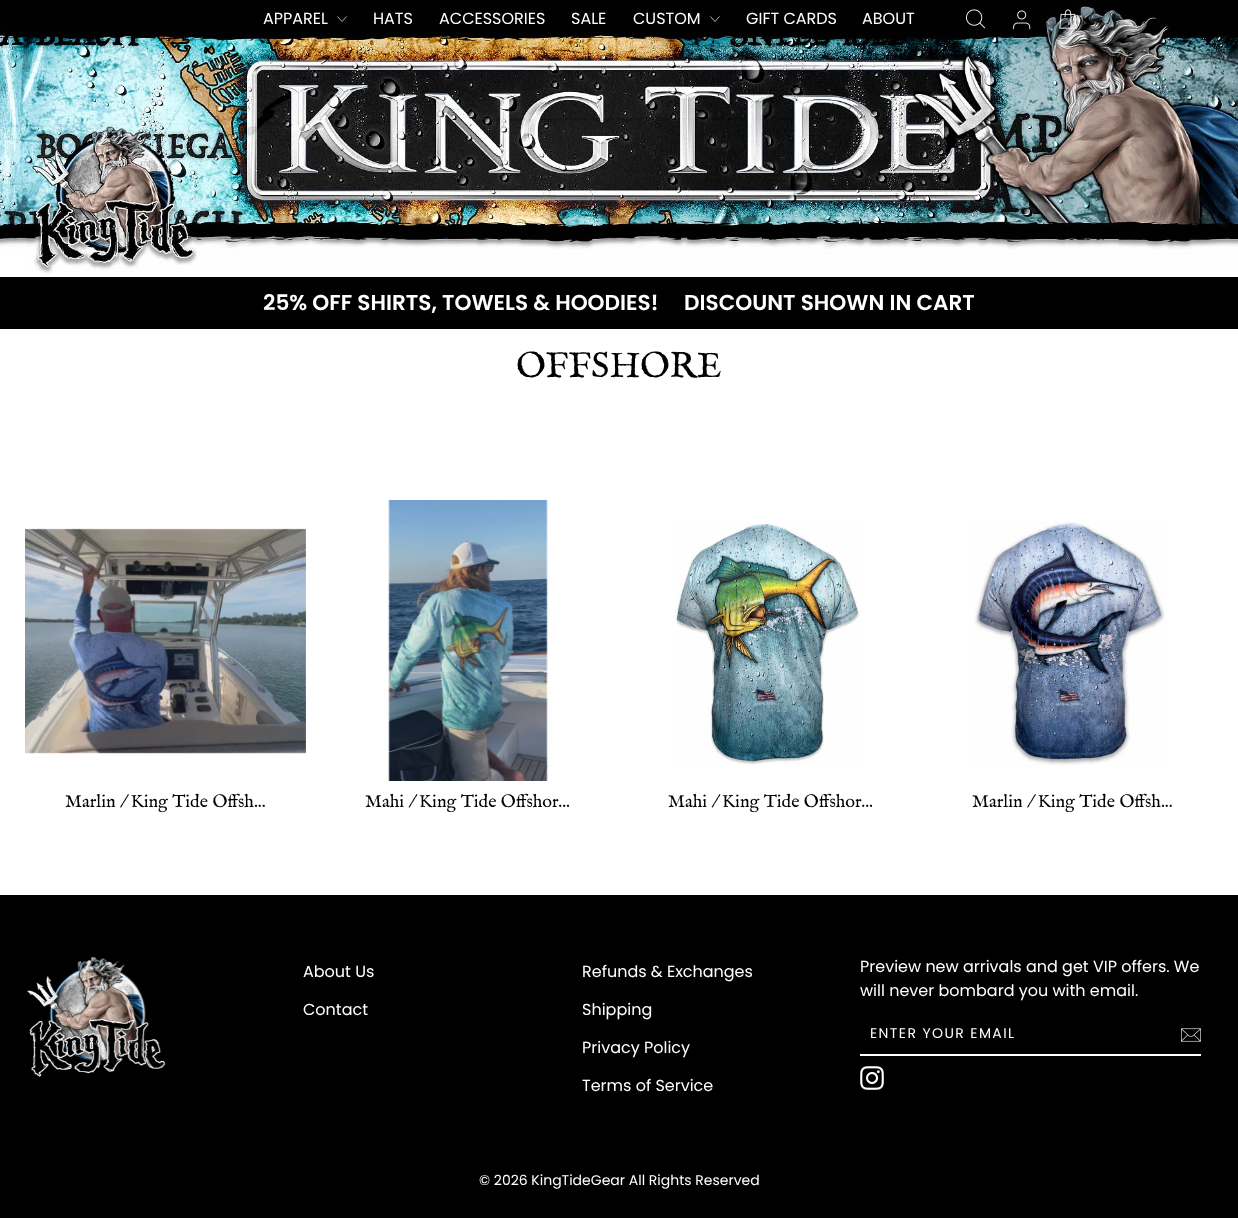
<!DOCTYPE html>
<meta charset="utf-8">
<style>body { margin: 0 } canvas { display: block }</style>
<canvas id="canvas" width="1238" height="1218"></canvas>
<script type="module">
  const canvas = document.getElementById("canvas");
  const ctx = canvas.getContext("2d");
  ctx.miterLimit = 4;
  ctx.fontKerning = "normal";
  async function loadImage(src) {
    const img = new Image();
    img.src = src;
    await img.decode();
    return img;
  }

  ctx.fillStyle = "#ffffff";
  ctx.fillRect(0, 0, 1238, 1218);
  ctx.drawImage(await loadImage("img1.png"), 0, 0, 1238, 274);
  ctx.font = "16px Poppins";
  ctx.fillText("APPAREL", 263, 24);
  ctx.beginPath();
  ctx.moveTo(337.5, 16.5);
  ctx.lineTo(342, 21.5);
  ctx.lineTo(346.5, 16.5);
  ctx.strokeStyle = "#ffffff";
  ctx.lineWidth = 0.7;
  ctx.stroke();
  ctx.fillText("HATS", 373, 24);
  ctx.fillText("ACCESSORIES", 439, 24);
  ctx.fillText("SALE", 571, 24);
  ctx.fillText("CUSTOM", 633, 24);
  ctx.beginPath();
  ctx.moveTo(710.5, 16.5);
  ctx.lineTo(715, 21.5);
  ctx.lineTo(719.5, 16.5);
  ctx.stroke();
  ctx.fillText("GIFT CARDS", 746, 24);
  ctx.fillText("ABOUT", 862, 24);
  ctx.drawImage(await loadImage("img2.png"), 966, 9, 20, 20);
  ctx.drawImage(await loadImage("img3.png"), 1013, 10, 18, 20);
  ctx.drawImage(await loadImage("img4.png"), 1059, 9, 18, 20);
  ctx.fillStyle = "#000000";
  ctx.fillRect(0, 277, 1238, 52);
  ctx.font = "600 21.6px Poppins";
  ctx.fillStyle = "#ffffff";
  ctx.fillText("25% OFF SHIRTS, TOWELS & HOODIES!", 263, 310);
  ctx.fillText("DISCOUNT SHOWN IN CART", 684, 310);
  ctx.font = "36px IM FELL English";
  ctx.fillStyle = "#000000";
  ctx.fillText("OFFSHORE", 516, 377);
  ctx.drawImage(await loadImage("img5.png"), 25, 528, 281, 226);
  ctx.wordSpacing = "0.5px";
  ctx.font = "18px IM FELL English";
  ctx.fillText("Marlin / King Tide Offsh...", 65, 807);
  ctx.drawImage(await loadImage("img6.png"), 388, 500, 160, 281);
  ctx.fillText("Mahi / King Tide Offshor...", 365, 807);
  ctx.drawImage(await loadImage("img7.png"), 675, 523, 184, 242);
  ctx.fillText("Mahi / King Tide Offshor...", 668, 807);
  ctx.drawImage(await loadImage("img8.png"), 974, 521, 191, 245);
  ctx.fillText("Marlin / King Tide Offsh...", 972, 807);
  ctx.fillRect(0, 895, 1238, 323);
  ctx.drawImage(await loadImage("img9.png"), 27, 957, 139, 120);
  ctx.wordSpacing = "0px";
  ctx.font = "16px Poppins";
  ctx.fillStyle = "#ffffff";
  ctx.fillText("About Us", 303, 977);
  ctx.fillText("Contact", 303, 1015);
  ctx.fillText("Refunds & Exchanges", 582, 977);
  ctx.fillText("Shipping", 582, 1015);
  ctx.fillText("Privacy Policy", 582, 1053);
  ctx.fillText("Terms of Service", 582, 1091);
  ctx.fillText("Preview new arrivals and get VIP offers. We", 860, 972);
  ctx.fillText("will never bombard you with email.", 860, 996);
  ctx.fillRect(860, 1054, 341, 2);
  ctx.letterSpacing = "1.4px";
  ctx.font = "14px Poppins";
  ctx.fillText("ENTER YOUR EMAIL", 870, 1038);
  ctx.drawImage(await loadImage("img10.png"), 1181, 1028, 20, 14);
  ctx.drawImage(await loadImage("img11.png"), 860, 1066, 24, 24);
  ctx.letterSpacing = "0px";
  ctx.fillText("© 2026 KingTideGear All Rights Reserved", 479, 1185);
</script>
